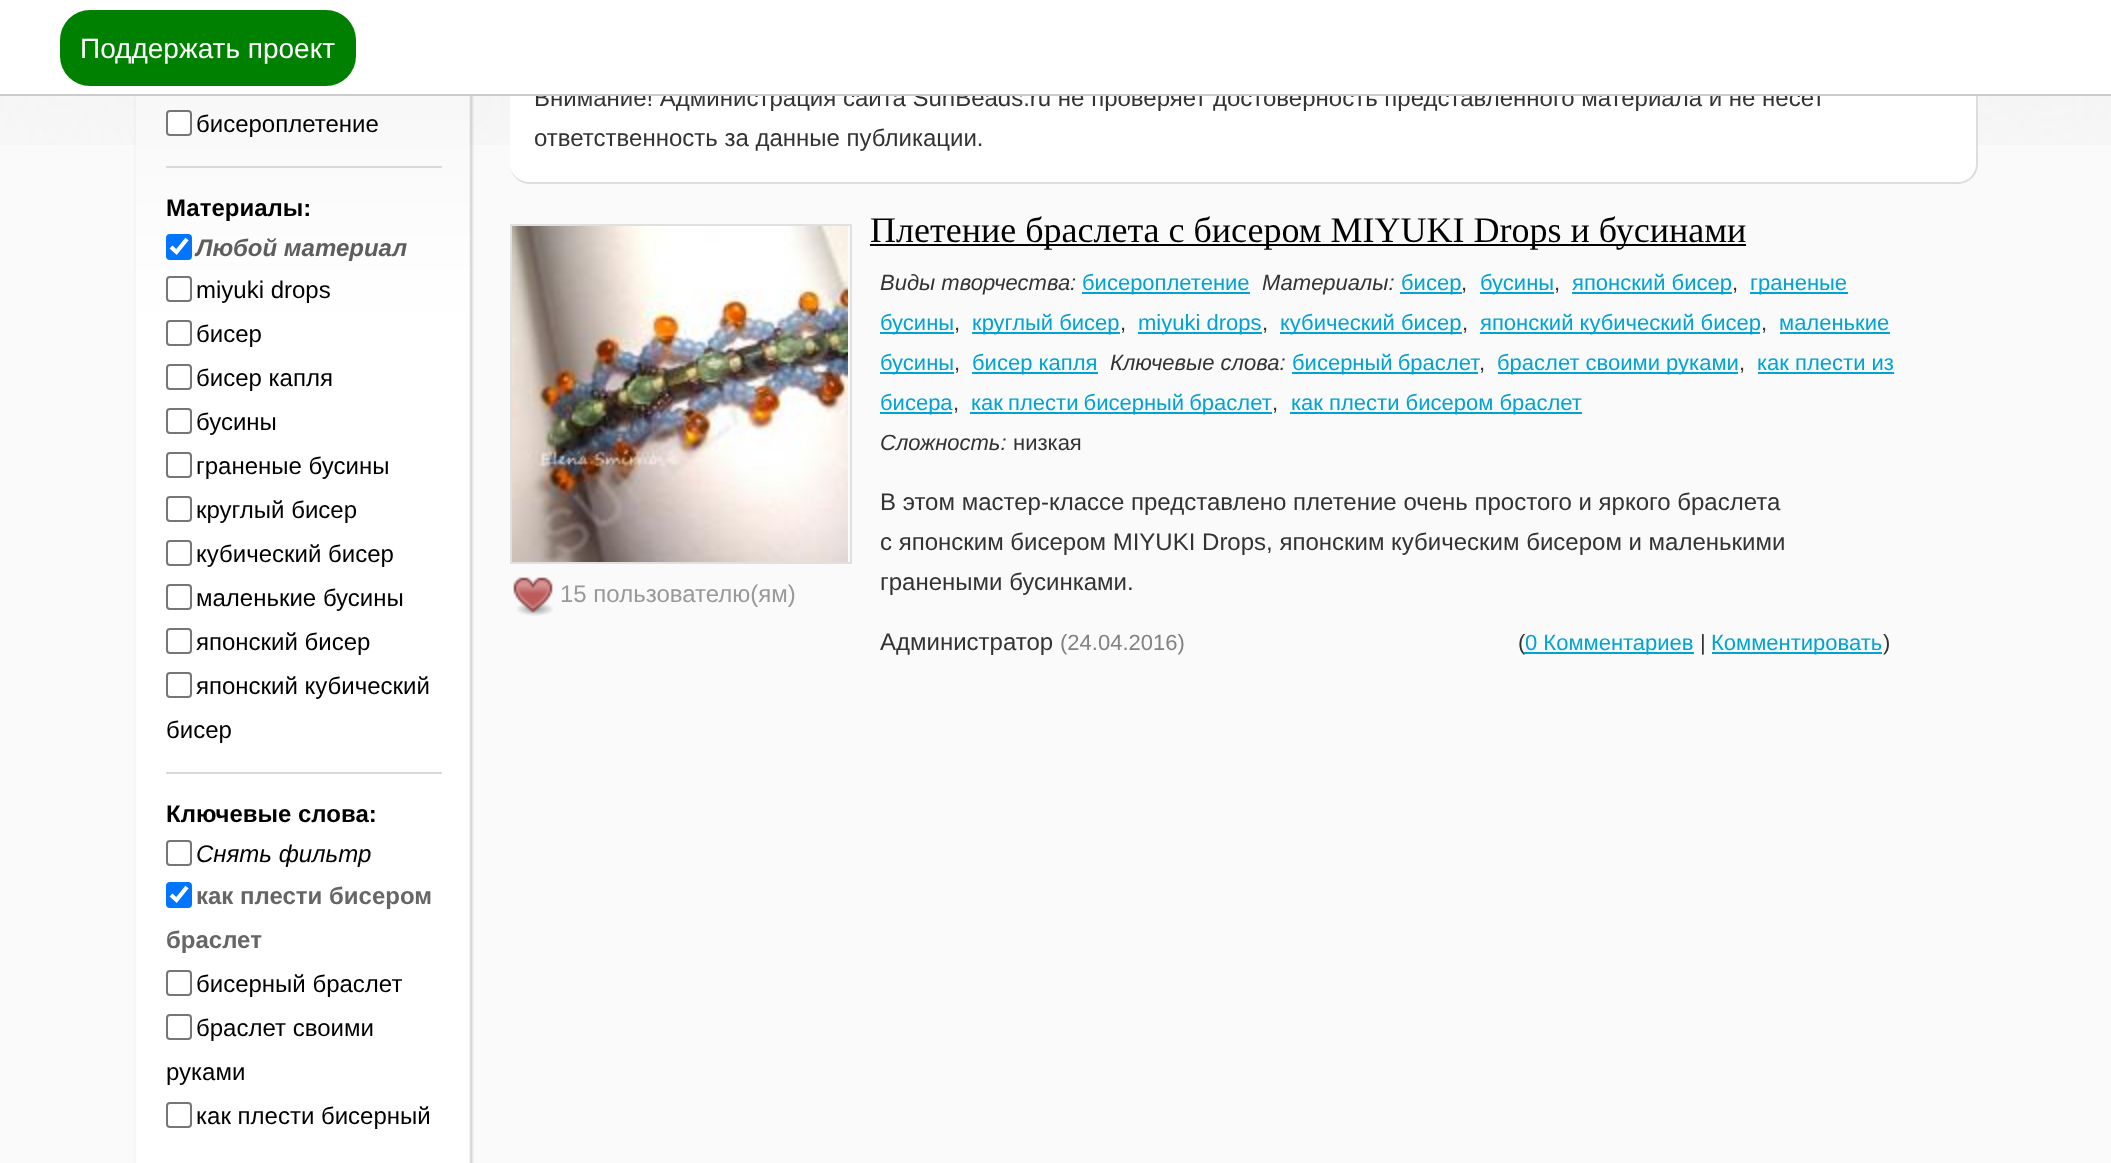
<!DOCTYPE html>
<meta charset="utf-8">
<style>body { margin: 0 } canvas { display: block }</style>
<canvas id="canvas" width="2111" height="1163"></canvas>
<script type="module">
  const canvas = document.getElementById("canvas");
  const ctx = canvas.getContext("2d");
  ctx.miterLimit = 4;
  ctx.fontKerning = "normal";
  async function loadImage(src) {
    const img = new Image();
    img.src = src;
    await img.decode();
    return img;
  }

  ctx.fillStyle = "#fafafa";
  ctx.fillRect(0, 0, 2111, 1163);
  ctx.drawImage(await loadImage("img1.png"), 0, 96, 2111, 49);
  ctx.fillStyle = "#ffffff";
  ctx.beginPath();
  ctx.roundRect(510, 54, 1468, 130, 20);
  ctx.fill();
  ctx.fillStyle = "#dddddd";
  ctx.beginPath();
  ctx.moveTo(530, 54);
  ctx.lineTo(1958, 54);
  ctx.bezierCurveTo(1969, 54, 1978, 63, 1978, 74);
  ctx.lineTo(1978, 164);
  ctx.bezierCurveTo(1978, 175, 1969, 184, 1958, 184);
  ctx.lineTo(530, 184);
  ctx.bezierCurveTo(519, 184, 510, 175, 510, 164);
  ctx.lineTo(510, 74);
  ctx.bezierCurveTo(510, 63, 519, 54, 530, 54);
  ctx.closePath();
  ctx.moveTo(530, 54);
  ctx.lineTo(1958, 54);
  ctx.bezierCurveTo(1968, 54, 1976, 63, 1976, 74);
  ctx.lineTo(1976, 164);
  ctx.bezierCurveTo(1976, 174, 1968, 182, 1958, 182);
  ctx.lineTo(530, 182);
  ctx.bezierCurveTo(519, 182, 510, 174, 510, 164);
  ctx.lineTo(510, 74);
  ctx.bezierCurveTo(510, 63, 519, 54, 530, 54);
  ctx.closePath();
  ctx.fill("evenodd");
  ctx.font = "24px Liberation Sans";
  ctx.fillStyle = "#333333";
  ctx.fillText("Внимание! Администрация сайта SunBeads.ru не проверяет достоверность представленного материала и не несет", 534, 106);
  ctx.fillStyle = "#ffffff";
  ctx.fillRect(0, 0, 2111, 94);
  ctx.fillStyle = "#cccccc";
  ctx.fillRect(0, 94, 2111, 2);
  ctx.fillStyle = "#008000";
  ctx.beginPath();
  ctx.roundRect(60, 10, 296, 76, 30);
  ctx.fill();
  ctx.font = "28px Liberation Sans";
  ctx.fillStyle = "#ffffff";
  ctx.fillText("Поддержать проект", 80, 58);
  ctx.drawImage(await loadImage("img2.png"), 134, 96, 300, 1067);
  ctx.drawImage(await loadImage("img3.png"), 434, 96, 40, 1067);
  ctx.beginPath();
  ctx.roundRect(167, 111, 24, 24, 3);
  ctx.fill();
  ctx.strokeStyle = "#767676";
  ctx.lineWidth = 2;
  ctx.stroke();
  ctx.font = "24px Liberation Sans";
  ctx.fillStyle = "#000000";
  ctx.fillText("бисероплетение", 196, 132);
  ctx.fillStyle = "#d9d9d9";
  ctx.fillRect(166, 166, 276, 2);
  ctx.font = "bold 24px Liberation Sans";
  ctx.fillStyle = "#000000";
  ctx.fillText("Материалы:", 166, 216);
  ctx.fillStyle = "#0075ff";
  ctx.beginPath();
  ctx.roundRect(166, 234, 26, 26, 4);
  ctx.fill();
  ctx.beginPath();
  ctx.moveTo(171, 247);
  ctx.lineTo(176.5, 252);
  ctx.lineTo(187, 239);
  ctx.strokeStyle = "#ffffff";
  ctx.lineWidth = 4.2;
  ctx.stroke();
  ctx.font = "italic bold 24px Liberation Sans";
  ctx.fillStyle = "#5e5e5e";
  ctx.fillText("Любой материал", 196, 256);
  ctx.beginPath();
  ctx.roundRect(167, 277, 24, 24, 3);
  ctx.strokeStyle = "#767676";
  ctx.lineWidth = 2;
  ctx.stroke();
  ctx.font = "24px Liberation Sans";
  ctx.fillStyle = "#000000";
  ctx.fillText("miyuki drops", 196, 298);
  ctx.beginPath();
  ctx.roundRect(167, 321, 24, 24, 3);
  ctx.stroke();
  ctx.fillText("бисер", 196, 342);
  ctx.beginPath();
  ctx.roundRect(167, 365, 24, 24, 3);
  ctx.stroke();
  ctx.fillText("бисер капля", 196, 386);
  ctx.beginPath();
  ctx.roundRect(167, 409, 24, 24, 3);
  ctx.stroke();
  ctx.fillText("бусины", 196, 430);
  ctx.beginPath();
  ctx.roundRect(167, 453, 24, 24, 3);
  ctx.stroke();
  ctx.fillText("граненые бусины", 196, 474);
  ctx.beginPath();
  ctx.roundRect(167, 497, 24, 24, 3);
  ctx.stroke();
  ctx.fillText("круглый бисер", 196, 518);
  ctx.beginPath();
  ctx.roundRect(167, 541, 24, 24, 3);
  ctx.stroke();
  ctx.fillText("кубический бисер", 196, 562);
  ctx.beginPath();
  ctx.roundRect(167, 585, 24, 24, 3);
  ctx.stroke();
  ctx.fillText("маленькие бусины", 196, 606);
  ctx.beginPath();
  ctx.roundRect(167, 629, 24, 24, 3);
  ctx.stroke();
  ctx.fillText("японский бисер", 196, 650);
  ctx.beginPath();
  ctx.roundRect(167, 673, 24, 24, 3);
  ctx.stroke();
  ctx.fillText("японский кубический", 196, 694);
  ctx.fillText("бисер", 166, 738);
  ctx.fillStyle = "#d9d9d9";
  ctx.fillRect(166, 772, 276, 2);
  ctx.font = "bold 24px Liberation Sans";
  ctx.fillStyle = "#000000";
  ctx.fillText("Ключевые слова:", 166, 822);
  ctx.beginPath();
  ctx.roundRect(167, 841, 24, 24, 3);
  ctx.stroke();
  ctx.font = "italic 24px Liberation Sans";
  ctx.fillText("Снять фильтр", 196, 862);
  ctx.fillStyle = "#0075ff";
  ctx.beginPath();
  ctx.roundRect(166, 882, 26, 26, 4);
  ctx.fill();
  ctx.beginPath();
  ctx.moveTo(171, 895);
  ctx.lineTo(176.5, 900);
  ctx.lineTo(187, 887);
  ctx.strokeStyle = "#ffffff";
  ctx.lineWidth = 4.2;
  ctx.stroke();
  ctx.font = "bold 24px Liberation Sans";
  ctx.fillStyle = "#666666";
  ctx.fillText("как плести бисером", 196, 904);
  ctx.fillText("браслет", 166, 948);
  ctx.beginPath();
  ctx.roundRect(167, 971, 24, 24, 3);
  ctx.strokeStyle = "#767676";
  ctx.lineWidth = 2;
  ctx.stroke();
  ctx.font = "24px Liberation Sans";
  ctx.fillStyle = "#000000";
  ctx.fillText("бисерный браслет", 196, 992);
  ctx.beginPath();
  ctx.roundRect(167, 1015, 24, 24, 3);
  ctx.stroke();
  ctx.fillText("браслет своими", 196, 1036);
  ctx.fillText("руками", 166, 1080);
  ctx.beginPath();
  ctx.roundRect(167, 1103, 24, 24, 3);
  ctx.stroke();
  ctx.fillText("как плести бисерный", 196, 1124);
  ctx.fillStyle = "#333333";
  ctx.fillText("ответственность за данные публикации.", 534, 146);
  ctx.strokeStyle = "#e0e0e0";
  ctx.strokeRect(511, 225, 340, 338);
  ctx.drawImage(await loadImage("img4.png"), 512, 226, 336, 336);
  ctx.drawImage(await loadImage("img5.png"), 513, 577, 40, 39);
  ctx.fillStyle = "#999999";
  ctx.fillText("15 пользователю(ям)", 560, 602);
  ctx.fillStyle = "#000000";
  ctx.fillRect(870, 244, 876, 2);
  ctx.font = "36px Liberation Serif";
  ctx.fillText("Плетение браслета с бисером MIYUKI Drops и бусинами", 870, 242);
  ctx.font = "italic 22px Liberation Sans";
  ctx.fillStyle = "#333333";
  ctx.fillText("Виды творчества:", 880, 290);
  ctx.fillStyle = "#00a3d2";
  ctx.fillRect(1082, 292, 168, 2);
  ctx.font = "22px Liberation Sans";
  ctx.fillText("бисероплетение", 1082, 290);
  ctx.font = "italic 22px Liberation Sans";
  ctx.fillStyle = "#333333";
  ctx.fillText("Материалы:", 1262, 290);
  ctx.fillStyle = "#00a3d2";
  ctx.fillRect(1400, 292, 62, 2);
  ctx.font = "22px Liberation Sans";
  ctx.fillText("бисер", 1401, 290);
  ctx.fillStyle = "#333333";
  ctx.fillText(",", 1461, 290);
  ctx.fillStyle = "#00a3d2";
  ctx.fillRect(1480, 292, 74, 2);
  ctx.fillText("бусины", 1480, 290);
  ctx.fillStyle = "#333333";
  ctx.fillText(",", 1554, 290);
  ctx.fillStyle = "#00a3d2";
  ctx.fillRect(1572, 292, 160, 2);
  ctx.fillText("японский бисер", 1572, 290);
  ctx.fillStyle = "#333333";
  ctx.fillText(",", 1732, 290);
  ctx.fillStyle = "#00a3d2";
  ctx.fillRect(1750, 292, 98, 2);
  ctx.fillText("граненые", 1750, 290);
  ctx.fillRect(880, 332, 74, 2);
  ctx.fillText("бусины", 880, 330);
  ctx.fillStyle = "#333333";
  ctx.fillText(",", 954, 330);
  ctx.fillStyle = "#00a3d2";
  ctx.fillRect(972, 332, 148, 2);
  ctx.fillText("круглый бисер", 972, 330);
  ctx.fillStyle = "#333333";
  ctx.fillText(",", 1120, 330);
  ctx.fillStyle = "#00a3d2";
  ctx.fillRect(1138, 332, 124, 2);
  ctx.fillText("miyuki drops", 1138, 330);
  ctx.fillStyle = "#333333";
  ctx.fillText(",", 1262, 330);
  ctx.fillStyle = "#00a3d2";
  ctx.fillRect(1280, 332, 182, 2);
  ctx.fillText("кубический бисер", 1280, 330);
  ctx.fillStyle = "#333333";
  ctx.fillText(",", 1462, 330);
  ctx.fillStyle = "#00a3d2";
  ctx.fillRect(1480, 332, 280, 2);
  ctx.fillText("японский кубический бисер", 1480, 330);
  ctx.fillStyle = "#333333";
  ctx.fillText(",", 1761, 330);
  ctx.fillStyle = "#00a3d2";
  ctx.fillText("маленькие", 1779, 330);
  ctx.fillRect(1780, 332, 110, 2);
  ctx.fillRect(880, 372, 74, 2);
  ctx.fillText("бусины", 880, 370);
  ctx.fillStyle = "#333333";
  ctx.fillText(",", 954, 370);
  ctx.fillStyle = "#00a3d2";
  ctx.fillRect(972, 372, 126, 2);
  ctx.fillText("бисер капля", 972, 370);
  ctx.font = "italic 22px Liberation Sans";
  ctx.fillStyle = "#333333";
  ctx.fillText("Ключевые слова:", 1110, 370);
  ctx.fillStyle = "#00a3d2";
  ctx.fillRect(1292, 372, 186, 2);
  ctx.wordSpacing = "-1px";
  ctx.font = "22px Liberation Sans";
  ctx.fillText("бисерный браслет", 1292, 370);
  ctx.wordSpacing = "0px";
  ctx.fillStyle = "#333333";
  ctx.fillText(",", 1479, 370);
  ctx.fillStyle = "#00a3d2";
  ctx.fillRect(1498, 372, 240, 2);
  ctx.fillText("браслет своими руками", 1497, 370);
  ctx.fillStyle = "#333333";
  ctx.fillText(",", 1739, 370);
  ctx.fillStyle = "#00a3d2";
  ctx.fillText("как плести из", 1757, 370);
  ctx.fillRect(1758, 372, 136, 2);
  ctx.fillRect(880, 412, 72, 2);
  ctx.fillText("бисера", 880, 410);
  ctx.fillStyle = "#333333";
  ctx.fillText(",", 953, 410);
  ctx.fillStyle = "#00a3d2";
  ctx.fillRect(970, 412, 302, 2);
  ctx.wordSpacing = "-1px";
  ctx.fillText("как плести бисерный браслет", 971, 410);
  ctx.wordSpacing = "0px";
  ctx.fillStyle = "#333333";
  ctx.fillText(",", 1272, 410);
  ctx.fillStyle = "#00a3d2";
  ctx.fillRect(1290, 412, 292, 2);
  ctx.fillText("как плести бисером браслет", 1291, 410);
  ctx.font = "italic 22px Liberation Sans";
  ctx.fillStyle = "#333333";
  ctx.fillText("Сложность:", 880, 450);
  ctx.font = "22px Liberation Sans";
  ctx.fillText("низкая", 1013, 450);
  ctx.font = "24px Liberation Sans";
  ctx.fillText("В этом мастер-классе представлено плетение очень простого и яркого браслета", 880, 510);
  ctx.fillText("с японским бисером MIYUKI Drops, японским кубическим бисером и маленькими", 880, 550);
  ctx.fillText("гранеными бусинками.", 880, 590);
  ctx.fillText("Администратор", 880, 650);
  ctx.font = "22px Liberation Sans";
  ctx.fillStyle = "#828282";
  ctx.fillText("(24.04.2016)", 1060, 650);
  ctx.fillStyle = "#333333";
  ctx.fillText("(", 1518, 650);
  ctx.fillStyle = "#00a3d2";
  ctx.fillRect(1524, 652, 170, 2);
  ctx.fillText("0 Комментариев", 1525, 650);
  ctx.fillStyle = "#333333";
  ctx.fillText("|", 1700, 650);
  ctx.fillStyle = "#00a3d2";
  ctx.fillRect(1712, 652, 170, 2);
  ctx.fillText("Комментировать", 1711, 650);
  ctx.fillStyle = "#333333";
  ctx.fillText(")", 1883, 650);
</script>
